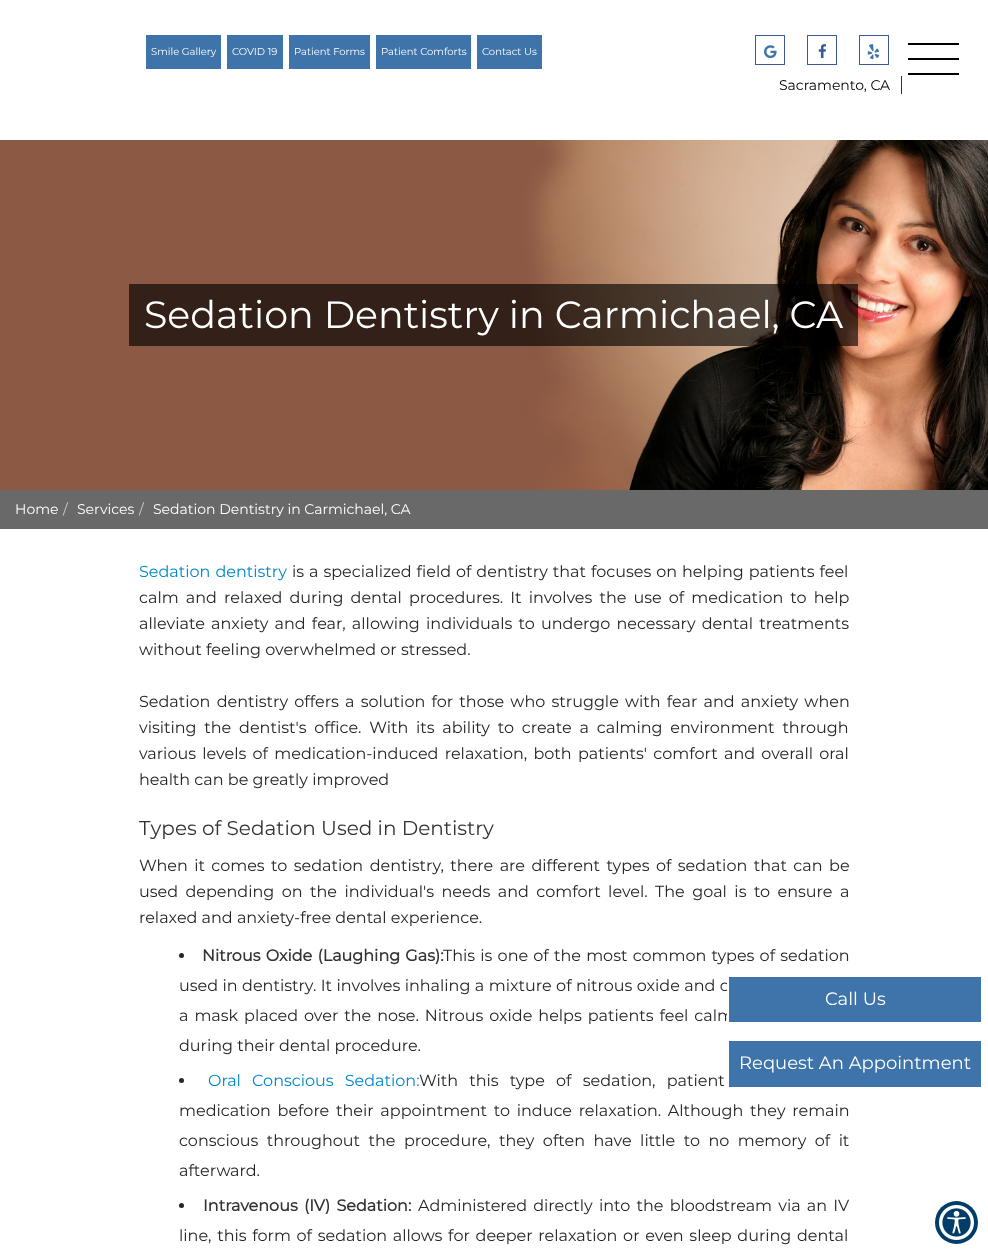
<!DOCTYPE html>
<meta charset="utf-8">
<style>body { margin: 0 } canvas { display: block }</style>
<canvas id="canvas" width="988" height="1254"></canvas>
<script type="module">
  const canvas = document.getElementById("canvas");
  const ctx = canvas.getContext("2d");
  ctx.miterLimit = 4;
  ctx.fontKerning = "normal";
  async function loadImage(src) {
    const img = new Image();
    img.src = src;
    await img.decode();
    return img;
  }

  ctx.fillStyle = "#ffffff";
  ctx.fillRect(0, 0, 988, 1254);
  ctx.fillStyle = "#3e74a9";
  ctx.fillRect(146, 35, 75, 34);
  ctx.font = "100 10px Montserrat";
  ctx.fillStyle = "#ffffff";
  ctx.fillText("Smile Gallery", 151, 55);
  ctx.fillStyle = "#3e74a9";
  ctx.fillRect(227, 35, 56, 34);
  ctx.fillStyle = "#ffffff";
  ctx.fillText("COVID 19", 232, 55);
  ctx.fillStyle = "#3e74a9";
  ctx.fillRect(289, 35, 81, 34);
  ctx.fillStyle = "#ffffff";
  ctx.fillText("Patient Forms", 294, 55);
  ctx.fillStyle = "#3e74a9";
  ctx.fillRect(376, 35, 95, 34);
  ctx.fillStyle = "#ffffff";
  ctx.fillText("Patient Comforts", 381, 55);
  ctx.fillStyle = "#3e74a9";
  ctx.fillRect(477, 35, 65, 34);
  ctx.fillStyle = "#ffffff";
  ctx.fillText("Contact Us", 482, 55);
  ctx.strokeStyle = "#3b5998";
  ctx.strokeRect(755.5, 35.5, 29, 29);
  ctx.drawImage(await loadImage("img1.png"), 764, 45, 13, 14);
  ctx.strokeRect(807.5, 35.5, 29, 29);
  ctx.drawImage(await loadImage("img2.png"), 818, 44, 9, 15);
  ctx.strokeRect(859.5, 35.5, 29, 29);
  ctx.drawImage(await loadImage("img3.png"), 867, 44, 13, 16);
  ctx.font = "100 14px Montserrat";
  ctx.fillStyle = "#000000";
  ctx.fillText("Sacramento, CA", 779, 90);
  ctx.fillStyle = "#333333";
  ctx.fillRect(901, 76, 1, 18);
  ctx.fillStyle = "#000000";
  ctx.fillRect(908, 43, 51, 2);
  ctx.fillRect(908, 58, 51, 2);
  ctx.fillRect(908, 73, 51, 2);
  ctx.drawImage(await loadImage("img4.png"), 0, 140, 988, 350);
  ctx.fillStyle = "rgba(0, 0, 0, 0.63)";
  ctx.fillRect(129, 284, 729, 62);
  ctx.font = "100 38px Montserrat";
  ctx.fillStyle = "#ffffff";
  ctx.fillText("Sedation Dentistry in Carmichael, CA", 144, 328);
  ctx.fillStyle = "#696969";
  ctx.fillRect(0, 490, 988, 39);
  ctx.font = "100 14px Montserrat";
  ctx.fillStyle = "#ffffff";
  ctx.fillText("Home", 15, 514);
  ctx.fillStyle = "#cccccc";
  ctx.fillText("/", 63, 514);
  ctx.fillStyle = "#ffffff";
  ctx.fillText("Services", 77, 514);
  ctx.fillStyle = "#cccccc";
  ctx.fillText("/", 139, 514);
  ctx.fillStyle = "#ffffff";
  ctx.fillText("Sedation Dentistry in Carmichael, CA", 153, 514);
  ctx.wordSpacing = "0.75px";
  ctx.font = "100 16px Montserrat";
  ctx.fillStyle = "#0088cc";
  ctx.fillText("Sedation dentistry", 139, 577);
  ctx.fillStyle = "#262626";
  ctx.fillText("is a specialized field of dentistry that focuses on helping patients feel", 292, 577);
  ctx.wordSpacing = "2.9px";
  ctx.fillText("calm and relaxed during dental procedures. It involves the use of medication to help", 139, 603);
  ctx.wordSpacing = "2px";
  ctx.fillText("alleviate anxiety and fear, allowing individuals to undergo necessary dental treatments", 139, 629);
  ctx.wordSpacing = "0px";
  ctx.fillText("without feeling overwhelmed or stressed.", 139, 655);
  ctx.wordSpacing = "2px";
  ctx.fillText("Sedation dentistry offers a solution for those who struggle with fear and anxiety when", 139, 707);
  ctx.wordSpacing = "3.6px";
  ctx.fillText("visiting the dentist's office. With its ability to create a calming environment through", 139, 733);
  ctx.wordSpacing = "2.1px";
  ctx.fillText("various levels of medication-induced relaxation, both patients' comfort and overall oral", 139, 759);
  ctx.wordSpacing = "0px";
  ctx.fillText("health can be greatly improved", 139, 785);
  ctx.font = "100 20px Montserrat";
  ctx.fillStyle = "#333333";
  ctx.fillText("Types of Sedation Used in Dentistry", 139, 835);
  ctx.wordSpacing = "2.25px";
  ctx.font = "100 16px Montserrat";
  ctx.fillStyle = "#262626";
  ctx.fillText("When it comes to sedation dentistry, there are different types of sedation that can be", 139, 871);
  ctx.wordSpacing = "3.25px";
  ctx.fillText("used depending on the individual's needs and comfort level. The goal is to ensure a", 139, 897);
  ctx.wordSpacing = "0px";
  ctx.fillText("relaxed and anxiety-free dental experience.", 139, 923);
  ctx.beginPath();
  ctx.arc(181.5, 955.5, 2.5, 0, Math.PI * 2);
  ctx.fill();
  ctx.wordSpacing = "1px";
  ctx.font = "bold 16px Montserrat";
  ctx.fillStyle = "#333333";
  ctx.fillText("Nitrous Oxide (Laughing Gas):", 202, 961);
  ctx.font = "100 16px Montserrat";
  ctx.fillStyle = "#262626";
  ctx.fillText("This is one of the most common types of sedation", 443, 961);
  ctx.wordSpacing = "0.25px";
  ctx.fillText("used in dentistry. It involves inhaling a mixture of nitrous oxide and o", 179, 991);
  ctx.wordSpacing = "1.75px";
  ctx.fillText("a mask placed over the nose. Nitrous oxide helps patients feel calm", 179, 1021);
  ctx.wordSpacing = "0px";
  ctx.fillText("during their dental procedure.", 179, 1051);
  ctx.beginPath();
  ctx.arc(181.5, 1080.5, 2.5, 0, Math.PI * 2);
  ctx.fill();
  ctx.wordSpacing = "7px";
  ctx.fillStyle = "#0088cc";
  ctx.fillText("Oral Conscious Sedation:", 208, 1086);
  ctx.fillStyle = "#262626";
  ctx.fillText("With this type of sedation, patient", 419, 1086);
  ctx.wordSpacing = "2.5px";
  ctx.fillText("medication before their appointment to induce relaxation. Although they remain", 179, 1116);
  ctx.wordSpacing = "4.25px";
  ctx.fillText("conscious throughout the procedure, they often have little to no memory of it", 179, 1146);
  ctx.wordSpacing = "0px";
  ctx.fillText("afterward.", 179, 1176);
  ctx.beginPath();
  ctx.arc(181.5, 1205.5, 2.5, 0, Math.PI * 2);
  ctx.fill();
  ctx.wordSpacing = "2px";
  ctx.font = "bold 16px Montserrat";
  ctx.fillStyle = "#333333";
  ctx.fillText("Intravenous (IV) Sedation:", 203, 1211);
  ctx.font = "100 16px Montserrat";
  ctx.fillStyle = "#262626";
  ctx.fillText("Administered directly into the bloodstream via an IV", 418, 1211);
  ctx.wordSpacing = "1.5px";
  ctx.fillText("line, this form of sedation allows for deeper relaxation or even sleep during dental", 179, 1241);
  ctx.fillStyle = "#3e74a9";
  ctx.beginPath();
  ctx.rect(728, 976, 254, 47);
  ctx.fill();
  ctx.strokeStyle = "#ffffff";
  ctx.lineWidth = 2;
  ctx.stroke();
  ctx.wordSpacing = "0px";
  ctx.font = "100 18px Montserrat";
  ctx.fillStyle = "#ffffff";
  ctx.fillText("Call Us", 825, 1005);
  ctx.fillStyle = "#3e74a9";
  ctx.fillRect(729, 1041, 252, 46);
  ctx.fillStyle = "#ffffff";
  ctx.fillText("Request An Appointment", 739, 1069);
  ctx.fillStyle = "#003d68";
  ctx.beginPath();
  ctx.arc(956.5, 1222.5, 21.5, 0, Math.PI * 2);
  ctx.fill();
  ctx.drawImage(await loadImage("img5.png"), 939, 1205, 35, 35);
</script>
